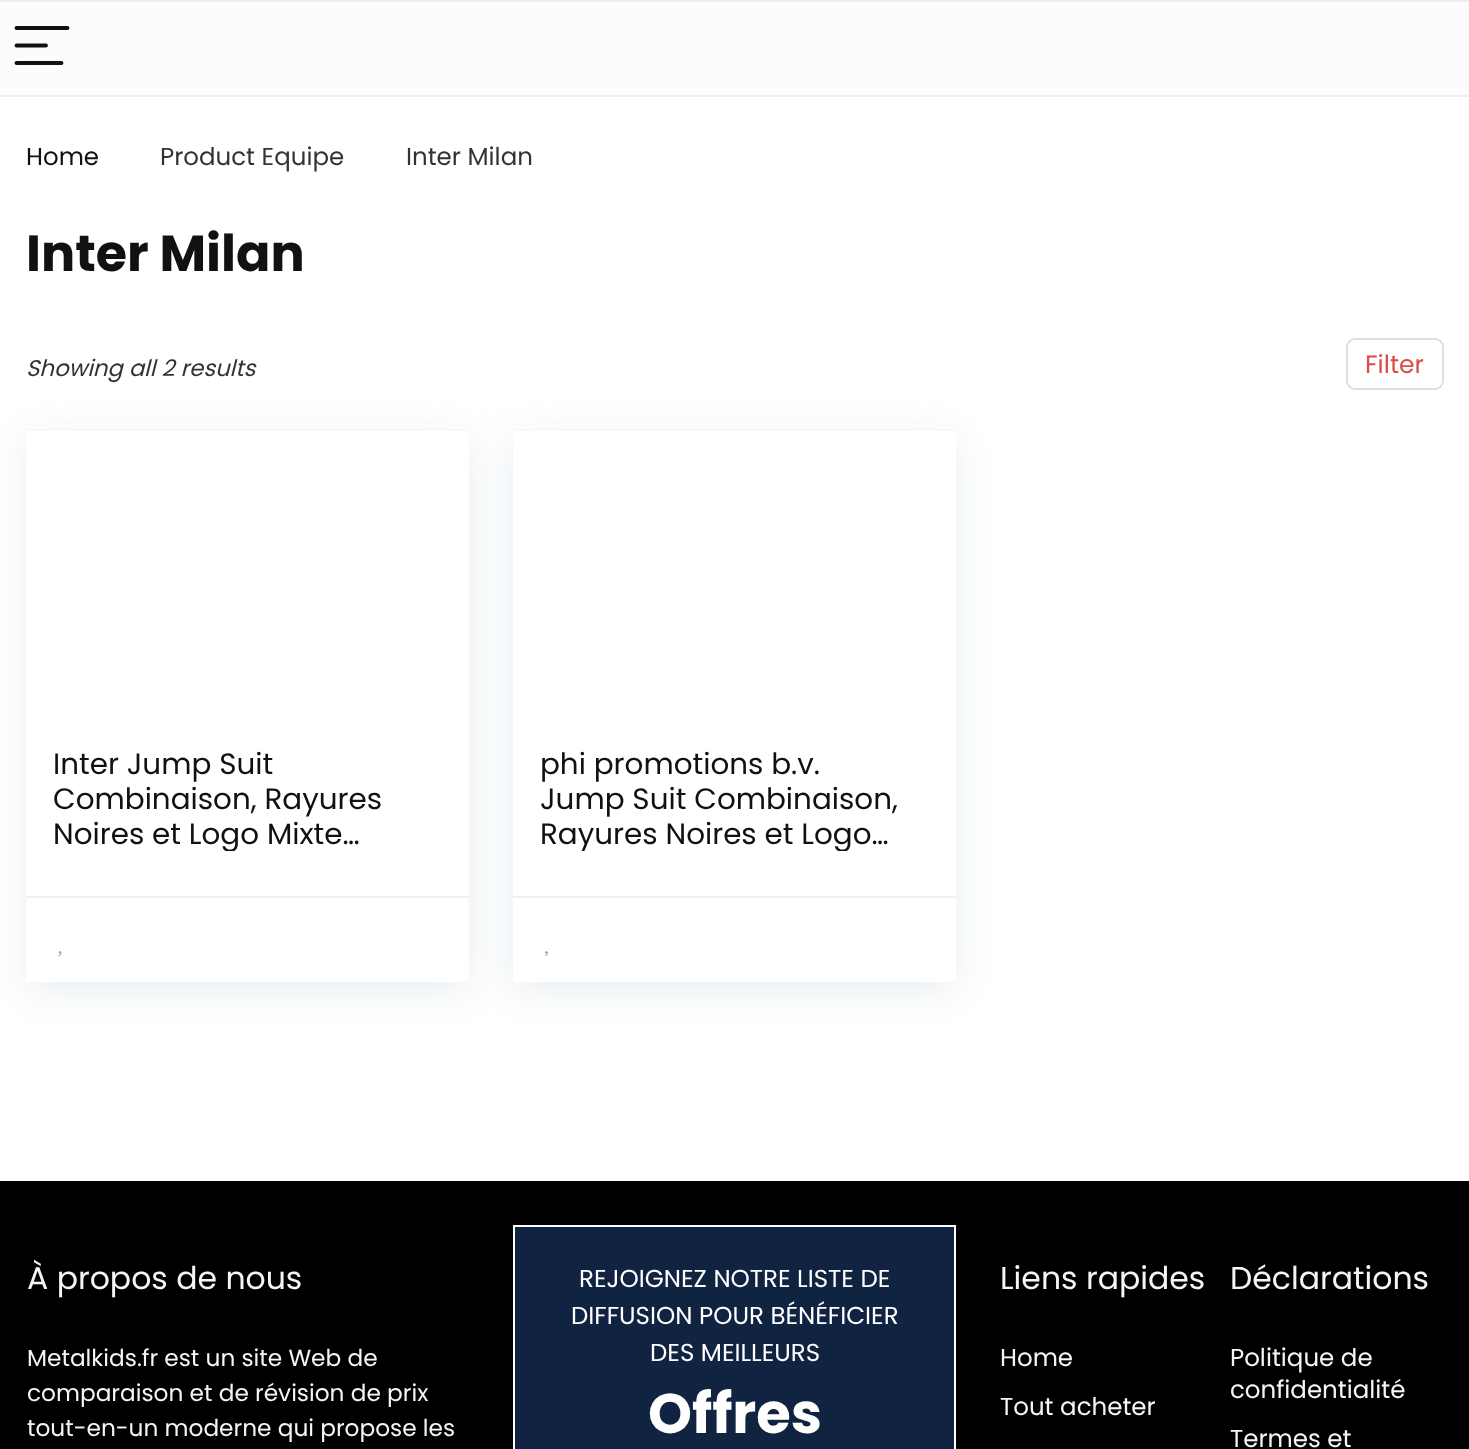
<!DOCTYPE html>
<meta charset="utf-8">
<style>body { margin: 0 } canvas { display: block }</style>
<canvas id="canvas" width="1469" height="1449"></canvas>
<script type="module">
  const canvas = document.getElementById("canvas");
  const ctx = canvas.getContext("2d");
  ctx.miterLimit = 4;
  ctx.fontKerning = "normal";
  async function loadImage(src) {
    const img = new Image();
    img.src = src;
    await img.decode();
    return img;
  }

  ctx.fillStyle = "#ffffff";
  ctx.fillRect(0, 0, 1469, 1449);
  ctx.fillStyle = "#fcfcfc";
  ctx.fillRect(0, 2, 1469, 93);
  ctx.fillStyle = "#eeeeee";
  ctx.fillRect(0, 0, 1469, 2);
  ctx.fillRect(0, 95, 1469, 2);
  ctx.beginPath();
  ctx.moveTo(16.5, 28);
  ctx.lineTo(67.5, 28);
  ctx.moveTo(16.5, 45.5);
  ctx.lineTo(46, 45.5);
  ctx.moveTo(16.5, 63);
  ctx.lineTo(61.5, 63);
  ctx.strokeStyle = "#111111";
  ctx.lineWidth = 3.9;
  ctx.lineCap = "round";
  ctx.stroke();
  ctx.font = "24.5px Poppins";
  ctx.fillStyle = "#111111";
  ctx.fillText("Home", 26, 165);
  ctx.fillStyle = "#333333";
  ctx.fillText("Product Equipe", 160, 165);
  ctx.fillText("Inter Milan", 406, 165);
  ctx.font = "bold 50.75px Poppins";
  ctx.fillStyle = "#111111";
  ctx.fillText("Inter Milan", 26, 271);
  ctx.font = "italic 22.75px Poppins";
  ctx.fillStyle = "#333333";
  ctx.fillText("Showing all 2 results", 26, 376);
  ctx.beginPath();
  ctx.roundRect(1347, 339, 96, 50, 8);
  ctx.strokeStyle = "#dce0e0";
  ctx.lineWidth = 2;
  ctx.stroke();
  ctx.font = "25px Poppins";
  ctx.fillStyle = "#dd4a48";
  ctx.fillText("Filter", 1365, 373);
  ctx.fillStyle = "rgba(188, 207, 219, 0.35)";
  ctx.filter = "blur(20px)";
  ctx.beginPath();
  ctx.rect(26, 438, 443, 553);
  ctx.fill();
  ctx.filter = "none";
  ctx.fillStyle = "#ffffff";
  ctx.fillRect(26, 431, 443, 551);
  ctx.fillStyle = "#f8f8f8";
  ctx.fillRect(26, 429, 443, 2);
  ctx.font = "29.4px Poppins";
  ctx.fillStyle = "#111111";
  ctx.fillText("Inter Jump Suit", 53, 774);
  ctx.fillText("Combinaison, Rayures", 53, 809);
  ctx.save();
  ctx.beginPath();
  ctx.rect(53, 746, 364, 105);
  ctx.clip();
  ctx.fillText("Noires et Logo Mixte…", 53, 844);
  ctx.restore();
  ctx.fillStyle = "#f0f0f0";
  ctx.fillRect(26, 896, 443, 2);
  ctx.drawImage(await loadImage("img1.png"), 58, 951, 4, 6);
  ctx.fillStyle = "rgba(188, 207, 219, 0.35)";
  ctx.filter = "blur(20px)";
  ctx.beginPath();
  ctx.rect(513, 438, 443, 553);
  ctx.fill();
  ctx.filter = "none";
  ctx.fillStyle = "#ffffff";
  ctx.fillRect(513, 431, 443, 551);
  ctx.fillStyle = "#f8f8f8";
  ctx.fillRect(513, 429, 443, 2);
  ctx.fillStyle = "#111111";
  ctx.fillText("phi promotions b.v.", 540, 774);
  ctx.fillText("Jump Suit Combinaison,", 540, 809);
  ctx.save();
  ctx.beginPath();
  ctx.rect(539, 746, 364, 105);
  ctx.clip();
  ctx.fillText("Rayures Noires et Logo…", 540, 844);
  ctx.restore();
  ctx.fillStyle = "#f0f0f0";
  ctx.fillRect(513, 896, 443, 2);
  ctx.drawImage(await loadImage("img2.png"), 545, 951, 3, 5);
  ctx.fillStyle = "#000000";
  ctx.fillRect(0, 1181, 1469, 268);
  ctx.font = "31.5px Poppins";
  ctx.fillStyle = "#f5f5f5";
  ctx.fillText("À propos de nous", 27, 1289);
  ctx.font = "23.25px Poppins";
  ctx.fillText("Metalkids.fr est un site Web de", 27, 1366);
  ctx.fillText("comparaison et de révision de prix", 27, 1401);
  ctx.fillText("tout-en-un moderne qui propose les", 27, 1436);
  ctx.fillStyle = "#102341";
  ctx.beginPath();
  ctx.rect(514, 1226, 441, 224);
  ctx.fill();
  ctx.strokeStyle = "#ffffff";
  ctx.stroke();
  ctx.font = "24.5px Poppins";
  ctx.fillStyle = "#ffffff";
  ctx.fillText("REJOIGNEZ NOTRE LISTE DE", 579, 1287);
  ctx.fillText("DIFFUSION POUR BÉNÉFICIER", 571, 1324);
  ctx.fillText("DES MEILLEURS", 650, 1361);
  ctx.font = "bold 56px Poppins";
  ctx.fillText("Offres", 648, 1433);
  ctx.font = "31.5px Poppins";
  ctx.fillStyle = "#f5f5f5";
  ctx.fillText("Liens rapides", 1000, 1289);
  ctx.font = "24.5px Poppins";
  ctx.fillText("Home", 1000, 1366);
  ctx.fillText("Tout acheter", 1000, 1415);
  ctx.font = "31.5px Poppins";
  ctx.fillText("Déclarations", 1230, 1289);
  ctx.font = "24.5px Poppins";
  ctx.fillText("Politique de", 1230, 1366);
  ctx.fillText("confidentialité", 1230, 1398);
  ctx.fillText("Termes et", 1230, 1447);
</script>
